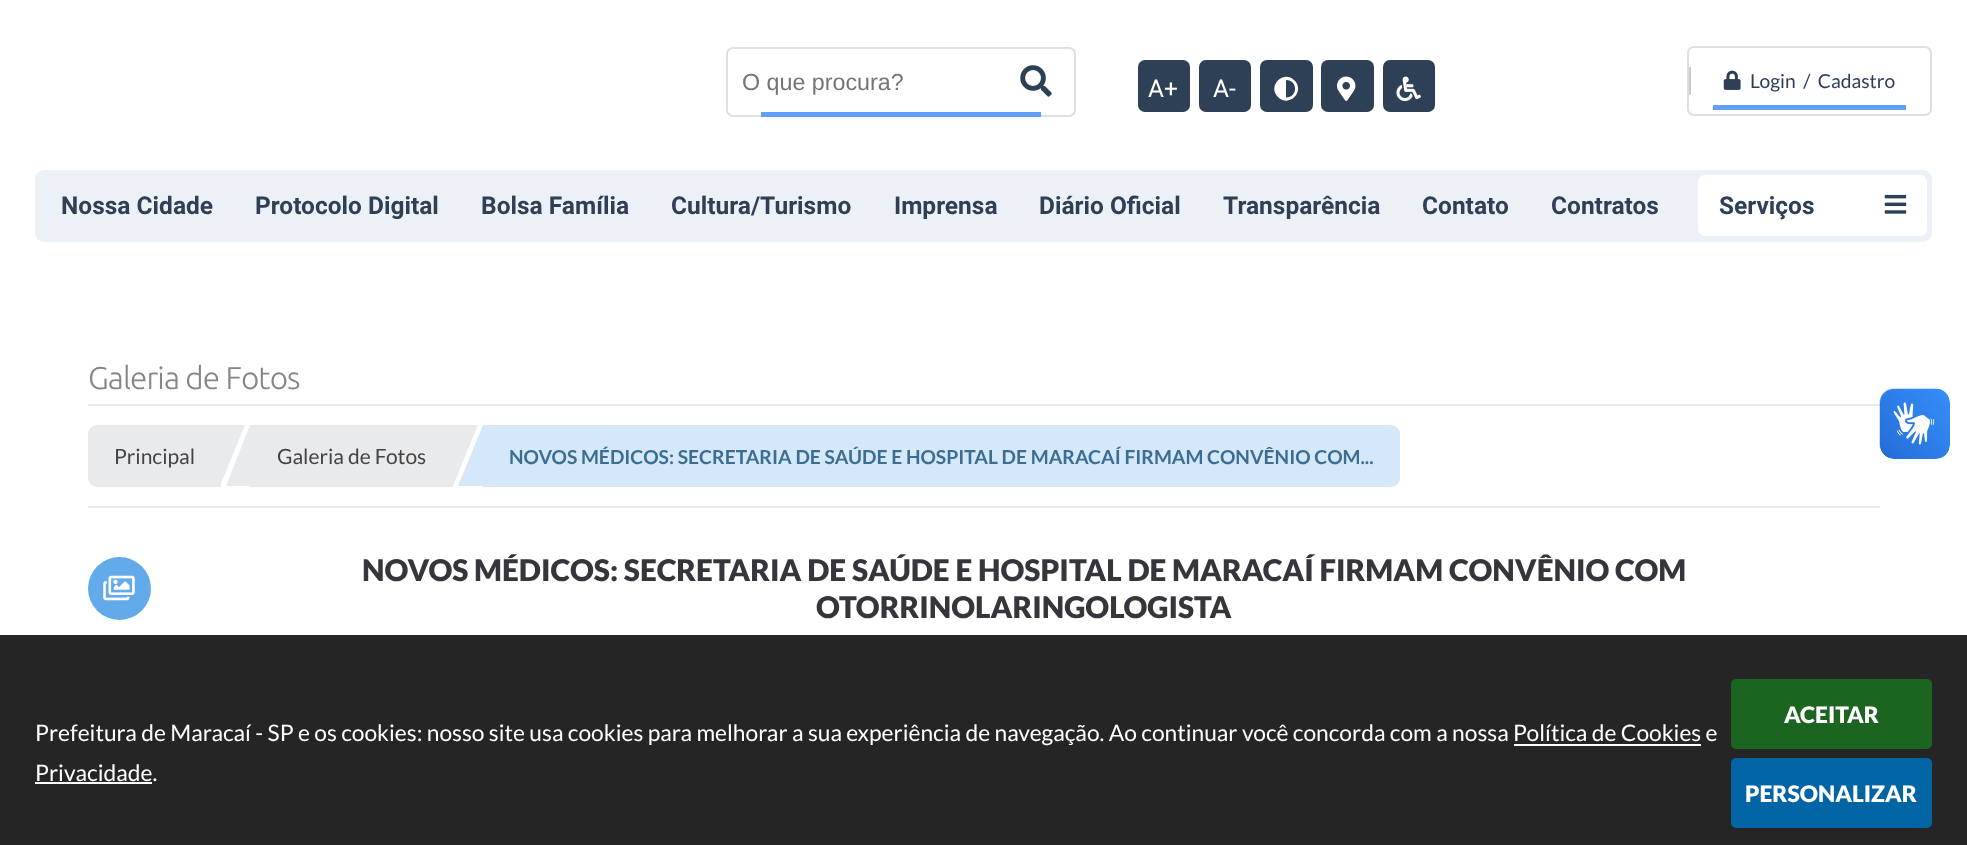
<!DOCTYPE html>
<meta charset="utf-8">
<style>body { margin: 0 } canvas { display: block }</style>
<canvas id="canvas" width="1967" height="845"></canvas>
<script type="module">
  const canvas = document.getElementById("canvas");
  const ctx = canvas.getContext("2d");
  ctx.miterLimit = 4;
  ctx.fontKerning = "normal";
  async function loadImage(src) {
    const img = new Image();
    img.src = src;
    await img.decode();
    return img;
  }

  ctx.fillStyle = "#ffffff";
  ctx.fillRect(0, 0, 1967, 845);
  ctx.fillStyle = "#252525";
  ctx.fillRect(0, 635, 1967, 210);
  ctx.beginPath();
  ctx.roundRect(727, 48, 348, 68, 6);
  ctx.strokeStyle = "#dfdfdf";
  ctx.lineWidth = 2;
  ctx.stroke();
  ctx.font = "23.25px Liberation Sans";
  ctx.fillStyle = "#757575";
  ctx.fillText("O que procura?", 742, 90);
  ctx.drawImage(await loadImage("img1.png"), 1020, 65, 32, 32);
  ctx.fillStyle = "#619ef7";
  ctx.fillRect(761, 112, 280, 5);
  ctx.fillStyle = "#2e4056";
  ctx.beginPath();
  ctx.roundRect(1138, 60, 52, 52, 7);
  ctx.fill();
  ctx.font = "24.5px Roboto";
  ctx.fillStyle = "#ffffff";
  ctx.fillText("A+", 1148, 97);
  ctx.fillStyle = "#2e4056";
  ctx.beginPath();
  ctx.roundRect(1199, 60, 52, 52, 7);
  ctx.fill();
  ctx.fillStyle = "#ffffff";
  ctx.fillText("A-", 1213, 97);
  ctx.fillStyle = "#2e4056";
  ctx.beginPath();
  ctx.roundRect(1260, 60, 53, 52, 7);
  ctx.fill();
  ctx.fillStyle = "#ffffff";
  ctx.beginPath();
  ctx.moveTo(1278, 97);
  ctx.bezierCurveTo(1267, 86, 1283.5, 69.5, 1294.5, 80.5);
  ctx.bezierCurveTo(1305.5, 91.5, 1289, 108, 1278, 97);
  ctx.closePath();
  ctx.moveTo(1286, 97.5);
  ctx.bezierCurveTo(1298, 97.5, 1298, 80, 1286, 80);
  ctx.closePath();
  ctx.fill();
  ctx.fillStyle = "#2e4056";
  ctx.beginPath();
  ctx.roundRect(1321, 60, 53, 52, 7);
  ctx.fill();
  ctx.drawImage(await loadImage("img2.png"), 1337, 76, 19, 25);
  ctx.beginPath();
  ctx.roundRect(1383, 60, 52, 52, 7);
  ctx.fill();
  ctx.drawImage(await loadImage("img3.png"), 1396, 76, 25, 26);
  ctx.fillStyle = "#ecf1f8";
  ctx.beginPath();
  ctx.roundRect(35, 170, 1897, 72, 9);
  ctx.fill();
  ctx.font = "bold 24.5px Roboto";
  ctx.fillStyle = "#2e4056";
  ctx.fillText("Nossa Cidade", 61, 214);
  ctx.fillText("Protocolo Digital", 255, 214);
  ctx.fillText("Bolsa Família", 481, 214);
  ctx.fillText("Cultura/Turismo", 671, 214);
  ctx.fillText("Imprensa", 894, 214);
  ctx.fillText("Diário Oficial", 1039, 214);
  ctx.fillText("Transparência", 1223, 214);
  ctx.fillText("Contato", 1422, 214);
  ctx.fillText("Contratos", 1551, 214);
  ctx.fillStyle = "#ffffff";
  ctx.beginPath();
  ctx.roundRect(1698, 175, 229, 61, 7);
  ctx.fill();
  ctx.fillStyle = "#2e4056";
  ctx.fillText("Serviços", 1719, 214);
  ctx.drawImage(await loadImage("img4.png"), 1884, 194, 23, 20);
  ctx.beginPath();
  ctx.roundRect(1688, 47, 243, 68, 6);
  ctx.stroke();
  ctx.fillStyle = "#c4cacf";
  ctx.beginPath();
  ctx.roundRect(1689, 67, 2, 28, 1);
  ctx.fill();
  ctx.drawImage(await loadImage("img5.png"), 1723, 70, 18, 20);
  ctx.font = "19.25px Lato";
  ctx.fillStyle = "#2e4056";
  ctx.fillText("Login  /  Cadastro", 1750, 88);
  ctx.fillStyle = "#619ef7";
  ctx.fillRect(1713, 105, 193, 5);
  ctx.fillStyle = "#e9e9e9";
  ctx.fillRect(88, 404, 1792, 2);
  ctx.drawImage(await loadImage("img6.png"), 1879, 388, 71, 71);
  ctx.drawImage(await loadImage("img7.png"), 1880, 389, 70, 70);
  ctx.font = "22.75px Lato";
  ctx.fillStyle = "#ffffff";
  ctx.fillText("Prefeitura de Maracaí - SP e os cookies: nosso site usa cookies para melhorar a sua experiência de navegação. Ao continuar você concorda com a nossa Política de Cookies e", 35, 741);
  ctx.fillText("Privacidade.", 35, 781);
  ctx.fillRect(1514, 744, 187, 2);
  ctx.fillRect(35, 782, 117, 2);
  ctx.fillStyle = "#1b6520";
  ctx.beginPath();
  ctx.roundRect(1731, 679, 201, 70, 5);
  ctx.fill();
  ctx.font = "900 22.75px Lato";
  ctx.fillStyle = "#ffffff";
  ctx.fillText("ACEITAR", 1784, 723);
  ctx.fillStyle = "#0164a4";
  ctx.beginPath();
  ctx.roundRect(1731, 758, 201, 70, 5);
  ctx.fill();
  ctx.fillStyle = "#ffffff";
  ctx.fillText("PERSONALIZAR", 1745, 802);
  ctx.letterSpacing = "-0.9px";
  ctx.font = "300 31.5px Ubuntu";
  ctx.fillStyle = "#868686";
  ctx.fillText("Galeria de Fotos", 88, 389);
  ctx.fillStyle = "#e9e9e9";
  ctx.fillRect(88, 506, 1792, 2);
  ctx.fillStyle = "#e9eaec";
  ctx.beginPath();
  ctx.roundRect(88, 425, 133, 62, [9, 0, 0, 9]);
  ctx.fill();
  ctx.letterSpacing = "0px";
  ctx.font = "21px Lato";
  ctx.fillStyle = "#444444";
  ctx.fillText("Principal", 114, 464);
  ctx.fillStyle = "#e9eaec";
  ctx.beginPath();
  ctx.moveTo(220, 425);
  ctx.lineTo(245, 425);
  ctx.lineTo(220, 486);
  ctx.closePath();
  ctx.fill();
  ctx.fillRect(250, 425, 203, 62);
  ctx.beginPath();
  ctx.moveTo(250, 486);
  ctx.lineTo(226, 486);
  ctx.lineTo(250, 425);
  ctx.closePath();
  ctx.fill();
  ctx.fillStyle = "#444444";
  ctx.fillText("Galeria de Fotos", 277, 464);
  ctx.fillStyle = "#e9eaec";
  ctx.beginPath();
  ctx.moveTo(453, 425);
  ctx.lineTo(478, 425);
  ctx.lineTo(453, 486);
  ctx.closePath();
  ctx.fill();
  ctx.fillStyle = "#d4e8f9";
  ctx.beginPath();
  ctx.roundRect(483, 425, 917, 62, [0, 9, 9, 0]);
  ctx.fill();
  ctx.beginPath();
  ctx.moveTo(483, 486);
  ctx.lineTo(458, 486);
  ctx.lineTo(483, 425);
  ctx.closePath();
  ctx.fill();
  ctx.font = "bold 19.25px Lato";
  ctx.fillStyle = "#3d6d92";
  ctx.fillText("NOVOS MÉDICOS: SECRETARIA DE SAÚDE E HOSPITAL DE MARACAÍ FIRMAM CONVÊNIO COM...", 509, 464);
  ctx.fillStyle = "#63aaea";
  ctx.beginPath();
  ctx.arc(119.5, 588.5, 31.5, 0, Math.PI * 2);
  ctx.fill();
  ctx.drawImage(await loadImage("img8.png"), 103, 575, 32, 26);
  ctx.font = "900 29.75px Lato";
  ctx.fillStyle = "#35353b";
  ctx.fillText("NOVOS MÉDICOS: SECRETARIA DE SAÚDE E HOSPITAL DE MARACAÍ FIRMAM CONVÊNIO COM", 362, 581);
  ctx.fillText("OTORRINOLARINGOLOGISTA", 816, 618);
</script>
